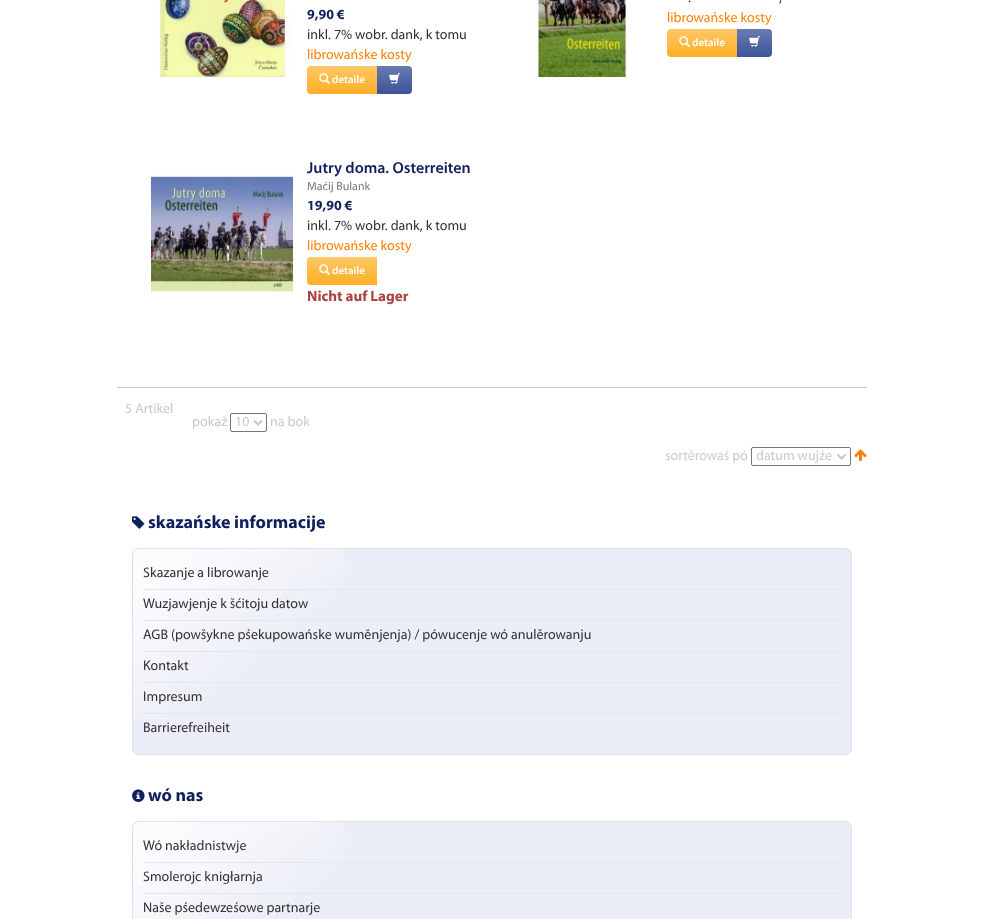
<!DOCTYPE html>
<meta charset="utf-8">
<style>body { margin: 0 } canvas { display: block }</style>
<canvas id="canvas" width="983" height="919"></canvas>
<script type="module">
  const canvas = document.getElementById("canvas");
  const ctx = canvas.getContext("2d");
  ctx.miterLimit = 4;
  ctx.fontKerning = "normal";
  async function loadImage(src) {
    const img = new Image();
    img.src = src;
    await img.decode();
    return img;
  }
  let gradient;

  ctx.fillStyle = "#ffffff";
  ctx.fillRect(0, 0, 983, 919);
  ctx.drawImage(await loadImage("img1.png"), 159, 0, 134, 77);
  ctx.font = "bold 14px Myriad";
  ctx.fillStyle = "#10205c";
  ctx.fillText("9,90 €", 307, 19);
  ctx.font = "14px Myriad";
  ctx.fillStyle = "#333333";
  ctx.fillText("inkl. 7% wobr. dank, k tomu", 307, 39);
  ctx.fillStyle = "#ff8005";
  ctx.fillText("librowańske kosty", 307, 59);
  gradient = ctx.createLinearGradient(342, 66, 342, 94);
  gradient.addColorStop(0, "#ffc767");
  gradient.addColorStop(1, "#ffaf24");
  ctx.fillStyle = gradient;
  ctx.beginPath();
  ctx.roundRect(307, 66, 70, 28, [4, 0, 0, 4]);
  ctx.fill();
  ctx.drawImage(await loadImage("img2.png"), 319, 73, 12, 12);
  ctx.font = "600 11px Myriad";
  ctx.fillStyle = "#ffffff";
  ctx.fillText("detaile", 332, 83);
  gradient = ctx.createLinearGradient(395, 66, 395, 94);
  gradient.addColorStop(0, "#697bb2");
  gradient.addColorStop(1, "#3c539a");
  ctx.fillStyle = gradient;
  ctx.beginPath();
  ctx.roundRect(377, 66, 35, 28, [0, 4, 4, 0]);
  ctx.fill();
  ctx.drawImage(await loadImage("img3.png"), 389, 73, 11, 11);
  ctx.drawImage(await loadImage("img4.png"), 527, 0, 101, 77);
  ctx.font = "14px Myriad";
  ctx.fillStyle = "#333333";
  ctx.fillText(".", 688, 2);
  ctx.fillText(",", 779, 2);
  ctx.fillStyle = "#ff8005";
  ctx.fillText("librowańske kosty", 667, 22);
  gradient = ctx.createLinearGradient(702, 29, 702, 57);
  gradient.addColorStop(0, "#ffc767");
  gradient.addColorStop(1, "#ffaf24");
  ctx.fillStyle = gradient;
  ctx.beginPath();
  ctx.roundRect(667, 29, 70, 28, [4, 0, 0, 4]);
  ctx.fill();
  ctx.drawImage(await loadImage("img2.png"), 679, 36, 12, 12);
  ctx.font = "600 11px Myriad";
  ctx.fillStyle = "#ffffff";
  ctx.fillText("detaile", 692, 46);
  gradient = ctx.createLinearGradient(755, 29, 755, 57);
  gradient.addColorStop(0, "#697bb2");
  gradient.addColorStop(1, "#3c539a");
  ctx.fillStyle = gradient;
  ctx.beginPath();
  ctx.roundRect(737, 29, 35, 28, [0, 4, 4, 0]);
  ctx.fill();
  ctx.drawImage(await loadImage("img3.png"), 749, 36, 11, 11);
  ctx.drawImage(await loadImage("img5.png"), 151, 175, 142, 118);
  ctx.font = "600 16px Myriad";
  ctx.fillStyle = "#10205c";
  ctx.fillText("Jutry doma. Osterreiten", 307, 173);
  ctx.font = "12px Myriad";
  ctx.fillStyle = "#7a7a7a";
  ctx.fillText("Maćij Bulank", 307, 190);
  ctx.font = "bold 14px Myriad";
  ctx.fillStyle = "#10205c";
  ctx.fillText("19,90 €", 307, 210);
  ctx.font = "14px Myriad";
  ctx.fillStyle = "#333333";
  ctx.fillText("inkl. 7% wobr. dank, k tomu", 307, 230);
  ctx.fillStyle = "#ff8005";
  ctx.fillText("librowańske kosty", 307, 250);
  gradient = ctx.createLinearGradient(342, 257, 342, 285);
  gradient.addColorStop(0, "#ffc767");
  gradient.addColorStop(1, "#ffaf24");
  ctx.fillStyle = gradient;
  ctx.beginPath();
  ctx.roundRect(307, 257, 70, 28, [4, 0, 0, 4]);
  ctx.fill();
  ctx.drawImage(await loadImage("img2.png"), 319, 264, 12, 12);
  ctx.font = "600 11px Myriad";
  ctx.fillStyle = "#ffffff";
  ctx.fillText("detaile", 332, 274);
  ctx.font = "bold 15px Myriad";
  ctx.fillStyle = "#a94442";
  ctx.fillText("Nicht auf Lager", 307, 301);
  ctx.fillStyle = "#cacaca";
  ctx.fillRect(117, 387, 750, 1);
  ctx.font = "14px Myriad";
  ctx.fillText("5 Artikel", 125, 413);
  ctx.fillText("pokaž", 192, 426);
  ctx.beginPath();
  ctx.roundRect(230.5, 413.5, 36, 18, 1.5);
  ctx.strokeStyle = "#767676";
  ctx.stroke();
  ctx.beginPath();
  ctx.moveTo(254, 420.5);
  ctx.lineTo(258, 424.5);
  ctx.lineTo(262, 420.5);
  ctx.strokeStyle = "#cacaca";
  ctx.lineWidth = 2;
  ctx.stroke();
  ctx.fillText("10", 235, 426);
  ctx.fillText("na bok", 270, 426);
  ctx.fillText("sortěrowaś pó", 665, 460);
  ctx.beginPath();
  ctx.roundRect(751.5, 447.5, 99, 18, 1.5);
  ctx.strokeStyle = "#767676";
  ctx.lineWidth = 1;
  ctx.stroke();
  ctx.beginPath();
  ctx.moveTo(837.5, 454.5);
  ctx.lineTo(841.5, 458.5);
  ctx.lineTo(845.5, 454.5);
  ctx.strokeStyle = "#cacaca";
  ctx.lineWidth = 2;
  ctx.stroke();
  ctx.fillText("datum wujźe", 756, 460);
  ctx.drawImage(await loadImage("img6.png"), 854, 449, 13, 12);
  ctx.drawImage(await loadImage("img7.png"), 132, 516, 13, 13);
  ctx.font = "bold 18px Myriad";
  ctx.fillStyle = "#10205c";
  ctx.fillText("skazańske informacije", 148, 528);
  ctx.fillStyle = "#ebeef6";
  ctx.beginPath();
  ctx.roundRect(132, 548, 720, 207, 7);
  ctx.fill();
  ctx.drawImage(await loadImage("img8.png"), 133, 549, 212, 170);
  ctx.beginPath();
  ctx.roundRect(132.5, 548.5, 719, 206, 6.5);
  ctx.strokeStyle = "#dde2ef";
  ctx.lineWidth = 1;
  ctx.stroke();
  ctx.fillStyle = "#e1e6f2";
  ctx.fillRect(143, 589, 698, 1);
  ctx.font = "14px Myriad";
  ctx.fillStyle = "#333333";
  ctx.fillText("Skazanje a librowanje", 143, 577);
  ctx.fillStyle = "#e1e6f2";
  ctx.fillRect(143, 620, 698, 1);
  ctx.fillStyle = "#333333";
  ctx.fillText("Wuzjawjenje k šćitoju datow", 143, 608);
  ctx.fillStyle = "#e1e6f2";
  ctx.fillRect(143, 651, 698, 1);
  ctx.fillStyle = "#333333";
  ctx.fillText("AGB (powšykne pśekupowańske wuměnjenja) / pówucenje wó anulěrowanju", 143, 639);
  ctx.fillStyle = "#e1e6f2";
  ctx.fillRect(143, 682, 698, 1);
  ctx.fillStyle = "#333333";
  ctx.fillText("Kontakt", 143, 670);
  ctx.fillStyle = "#e1e6f2";
  ctx.fillRect(143, 713, 698, 1);
  ctx.fillStyle = "#333333";
  ctx.fillText("Impresum", 143, 701);
  ctx.fillText("Barrierefreiheit", 143, 732);
  ctx.drawImage(await loadImage("img9.png"), 132, 789, 13, 13);
  ctx.font = "bold 18px Myriad";
  ctx.fillStyle = "#10205c";
  ctx.fillText("wó nas", 148, 801);
  ctx.fillStyle = "#ebeef6";
  ctx.beginPath();
  ctx.roundRect(132, 821, 720, 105, 7);
  ctx.fill();
  ctx.drawImage(await loadImage("img10.png"), 133, 822, 212, 97);
  ctx.beginPath();
  ctx.roundRect(132.5, 821.5, 719, 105, 6.5);
  ctx.stroke();
  ctx.fillStyle = "#e1e6f2";
  ctx.fillRect(143, 862, 698, 1);
  ctx.font = "14px Myriad";
  ctx.fillStyle = "#333333";
  ctx.fillText("Wó nakładnistwje", 143, 850);
  ctx.fillStyle = "#e1e6f2";
  ctx.fillRect(143, 893, 698, 1);
  ctx.fillStyle = "#333333";
  ctx.fillText("Smolerojc knigłarnja", 143, 881);
  ctx.fillText("Naše pśedewześowe partnarje", 143, 912);
</script>
